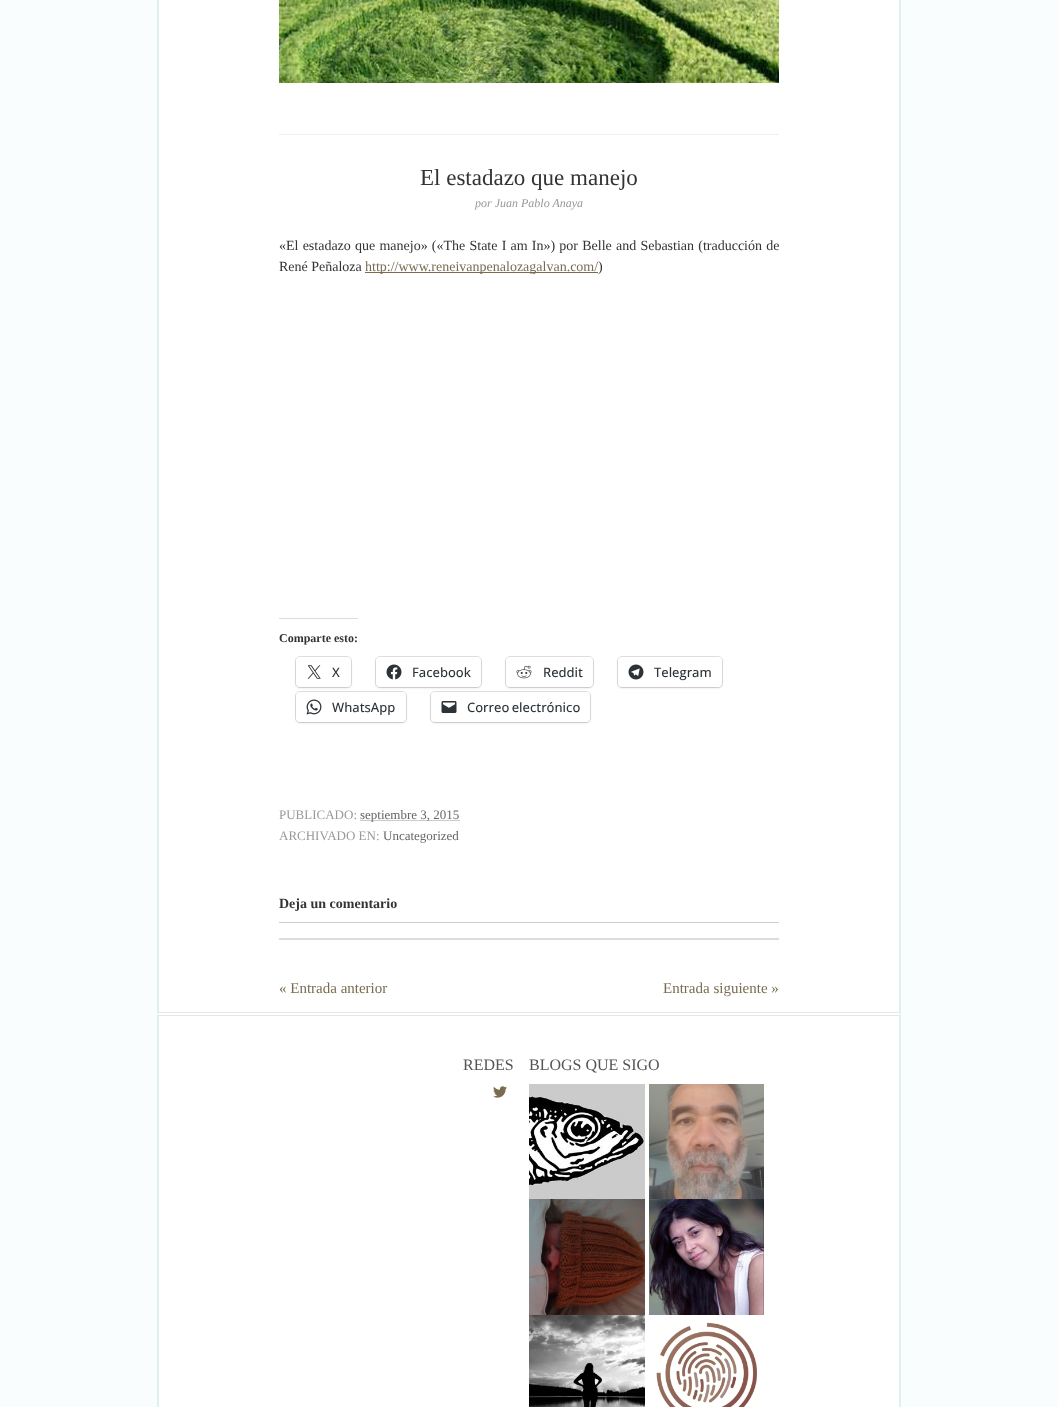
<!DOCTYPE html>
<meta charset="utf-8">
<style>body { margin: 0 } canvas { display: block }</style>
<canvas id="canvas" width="1058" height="1407"></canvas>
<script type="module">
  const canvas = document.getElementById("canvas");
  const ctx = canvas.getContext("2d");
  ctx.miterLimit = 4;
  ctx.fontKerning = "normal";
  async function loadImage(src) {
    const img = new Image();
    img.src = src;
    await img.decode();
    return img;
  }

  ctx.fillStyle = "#fafdfd";
  ctx.fillRect(0, 0, 1058, 1407);
  ctx.fillStyle = "#ffffff";
  ctx.fillRect(159, 0, 740, 1012);
  ctx.fillStyle = "#e0eff1";
  ctx.fillRect(899, 0, 2, 1012);
  ctx.fillRect(157, 0, 2, 1012);
  ctx.drawImage(await loadImage("img1.png"), 279, 0, 500, 83);
  ctx.fillStyle = "#efefef";
  ctx.fillRect(279, 134, 500, 1);
  ctx.font = "23px Liberation Serif";
  ctx.fillStyle = "#333333";
  ctx.fillText("El estadazo que manejo", 420, 185);
  ctx.font = "italic 12px Liberation Serif";
  ctx.fillStyle = "#999999";
  ctx.fillText("por Juan Pablo Anaya", 475, 207);
  ctx.wordSpacing = "0.7px";
  ctx.font = "14px Liberation Serif";
  ctx.fillStyle = "#333333";
  ctx.fillText("«El estadazo que manejo» («The State I am In») por Belle and Sebastian (traducción de", 279, 250);
  ctx.wordSpacing = "0px";
  ctx.fillText("René Peñaloza", 279, 271);
  ctx.fillStyle = "#7a6c51";
  ctx.fillRect(365, 272, 233, 1);
  ctx.fillText("http://www.reneivanpenalozagalvan.com/", 365, 271);
  ctx.fillStyle = "#333333";
  ctx.fillText(")", 598, 271);
  ctx.fillStyle = "#dcdcde";
  ctx.fillRect(279, 618, 79, 1);
  ctx.font = "bold 12px Liberation Serif";
  ctx.fillStyle = "#333333";
  ctx.fillText("Comparte esto:", 279, 642);
  ctx.beginPath();
  ctx.roundRect(295.5, 656.5, 56, 31, 4.5);
  ctx.strokeStyle = "#e0e0e0";
  ctx.stroke();
  ctx.fillStyle = "rgba(0, 0, 0, 0.12)";
  ctx.filter = "blur(1px)";
  ctx.beginPath();
  ctx.roundRect(296, 658, 55, 30, 4);
  ctx.fill();
  ctx.filter = "none";
  ctx.fillStyle = "#ffffff";
  ctx.beginPath();
  ctx.roundRect(296, 657, 55, 30, 4);
  ctx.fill();
  ctx.drawImage(await loadImage("img2.png"), 307, 665, 14, 14);
  ctx.font = "500 13px Open Sans";
  ctx.fillStyle = "#2c3338";
  ctx.fillText("X", 332, 677);
  ctx.beginPath();
  ctx.roundRect(375.5, 656.5, 106, 31, 4.5);
  ctx.stroke();
  ctx.fillStyle = "rgba(0, 0, 0, 0.12)";
  ctx.filter = "blur(1px)";
  ctx.beginPath();
  ctx.roundRect(376, 658, 105, 30, 4);
  ctx.fill();
  ctx.filter = "none";
  ctx.fillStyle = "#ffffff";
  ctx.beginPath();
  ctx.roundRect(376, 657, 105, 30, 4);
  ctx.fill();
  ctx.drawImage(await loadImage("img3.png"), 386, 664, 16, 16);
  ctx.fillStyle = "#2c3338";
  ctx.fillText("Facebook", 412, 677);
  ctx.beginPath();
  ctx.roundRect(505.5, 656.5, 88, 31, 4.5);
  ctx.stroke();
  ctx.fillStyle = "rgba(0, 0, 0, 0.12)";
  ctx.filter = "blur(1px)";
  ctx.beginPath();
  ctx.roundRect(506, 658, 87, 30, 4);
  ctx.fill();
  ctx.filter = "none";
  ctx.fillStyle = "#ffffff";
  ctx.beginPath();
  ctx.roundRect(506, 657, 87, 30, 4);
  ctx.fill();
  ctx.drawImage(await loadImage("img4.png"), 516, 665, 16, 14);
  ctx.fillStyle = "#2c3338";
  ctx.fillText("Reddit", 543, 677);
  ctx.beginPath();
  ctx.roundRect(617.5, 656.5, 105, 31, 4.5);
  ctx.stroke();
  ctx.fillStyle = "rgba(0, 0, 0, 0.12)";
  ctx.filter = "blur(1px)";
  ctx.beginPath();
  ctx.roundRect(618, 658, 104, 30, 4);
  ctx.fill();
  ctx.filter = "none";
  ctx.fillStyle = "#ffffff";
  ctx.beginPath();
  ctx.roundRect(618, 657, 104, 30, 4);
  ctx.fill();
  ctx.drawImage(await loadImage("img5.png"), 628, 664, 16, 16);
  ctx.fillStyle = "#2c3338";
  ctx.fillText("Telegram", 654, 677);
  ctx.beginPath();
  ctx.roundRect(295.5, 691.5, 111, 31, 4.5);
  ctx.stroke();
  ctx.fillStyle = "rgba(0, 0, 0, 0.12)";
  ctx.filter = "blur(1px)";
  ctx.beginPath();
  ctx.roundRect(296, 693, 110, 30, 4);
  ctx.fill();
  ctx.filter = "none";
  ctx.fillStyle = "#ffffff";
  ctx.beginPath();
  ctx.roundRect(296, 692, 110, 30, 4);
  ctx.fill();
  ctx.drawImage(await loadImage("img6.png"), 306, 699, 16, 16);
  ctx.fillStyle = "#2c3338";
  ctx.fillText("WhatsApp", 332, 712);
  ctx.beginPath();
  ctx.roundRect(430.5, 691.5, 160, 31, 4.5);
  ctx.stroke();
  ctx.fillStyle = "rgba(0, 0, 0, 0.12)";
  ctx.filter = "blur(1px)";
  ctx.beginPath();
  ctx.roundRect(431, 693, 159, 30, 4);
  ctx.fill();
  ctx.filter = "none";
  ctx.fillStyle = "#ffffff";
  ctx.beginPath();
  ctx.roundRect(431, 692, 159, 30, 4);
  ctx.fill();
  ctx.drawImage(await loadImage("img7.png"), 441, 701, 16, 12);
  ctx.wordSpacing = "-1px";
  ctx.fillStyle = "#2c3338";
  ctx.fillText("Correo electrónico", 467, 712);
  ctx.wordSpacing = "0px";
  ctx.font = "13px Liberation Serif";
  ctx.fillStyle = "#999999";
  ctx.fillText("PUBLICADO:", 279, 819);
  ctx.beginPath();
  ctx.moveTo(360.5, 820.5);
  ctx.lineTo(459.5, 820.5);
  ctx.strokeStyle = "#999999";
  ctx.setLineDash([1, 1]);
  ctx.stroke();
  ctx.fillStyle = "#666666";
  ctx.fillText("septiembre 3, 2015", 360, 819);
  ctx.fillStyle = "#999999";
  ctx.fillText("ARCHIVADO EN:", 279, 840);
  ctx.fillStyle = "#666666";
  ctx.fillText("Uncategorized", 383, 840);
  ctx.fillStyle = "#cccccc";
  ctx.fillRect(279, 922, 500, 1);
  ctx.font = "bold 14px Liberation Serif";
  ctx.fillStyle = "#333333";
  ctx.fillText("Deja un comentario", 279, 908);
  ctx.fillStyle = "#dcdcde";
  ctx.fillRect(279, 938, 500, 2);
  ctx.font = "15px Liberation Serif";
  ctx.fillStyle = "#7a6c51";
  ctx.fillText("« Entrada anterior", 279, 993);
  ctx.fillText("Entrada siguiente »", 663, 993);
  ctx.fillStyle = "#ffffff";
  ctx.fillRect(157, 1013, 744, 394);
  ctx.fillStyle = "#e6e6e6";
  ctx.fillRect(157, 1012, 744, 1);
  ctx.fillRect(157, 1015, 744, 1);
  ctx.fillStyle = "#e0eff1";
  ctx.beginPath();
  ctx.moveTo(901, 1012);
  ctx.lineTo(901, 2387);
  ctx.lineTo(899, 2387);
  ctx.lineTo(899, 1016);
  ctx.closePath();
  ctx.fill();
  ctx.beginPath();
  ctx.moveTo(157, 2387);
  ctx.lineTo(157, 1012);
  ctx.lineTo(159, 1016);
  ctx.lineTo(159, 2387);
  ctx.closePath();
  ctx.fill();
  ctx.font = "16px Liberation Serif";
  ctx.fillStyle = "#555555";
  ctx.fillText("REDES", 463, 1070);
  ctx.drawImage(await loadImage("img8.png"), 493, 1086, 14, 12);
  ctx.fillText("BLOGS QUE SIGO", 529, 1070);
  ctx.drawImage(await loadImage("img9.png"), 529, 1084, 116, 115);
  ctx.drawImage(await loadImage("img10.png"), 649, 1084, 115, 115);
  ctx.drawImage(await loadImage("img11.png"), 529, 1199, 116, 116);
  ctx.drawImage(await loadImage("img12.png"), 649, 1199, 115, 116);
  ctx.drawImage(await loadImage("img13.png"), 529, 1315, 116, 92);
  ctx.drawImage(await loadImage("img14.png"), 656, 1322, 101, 85);
</script>
